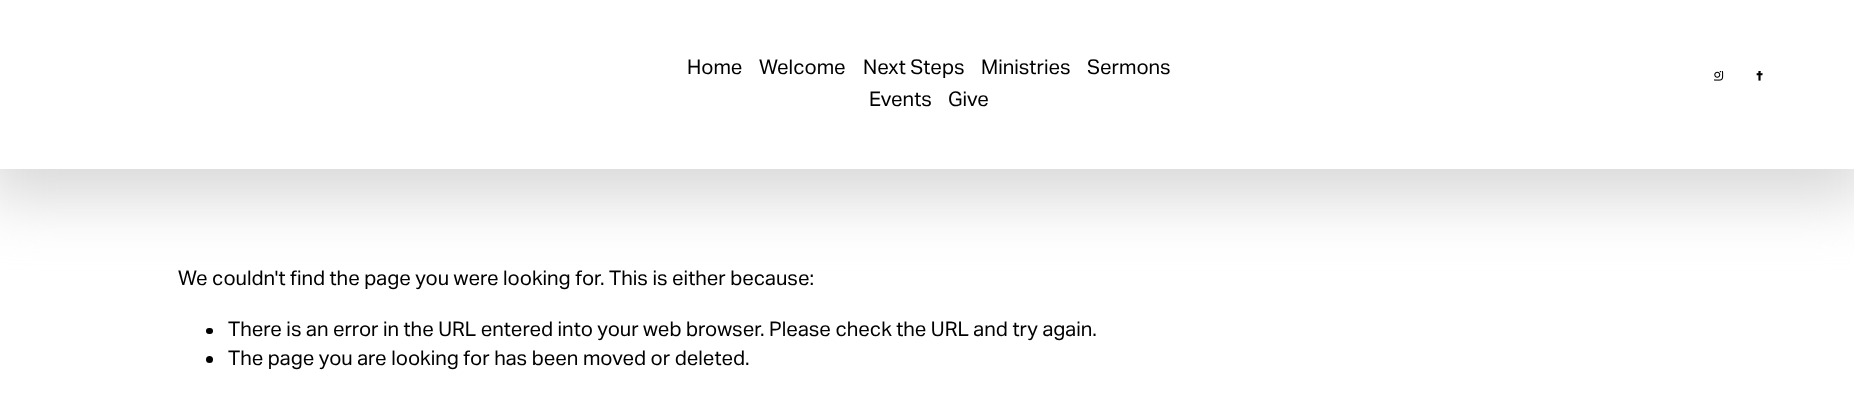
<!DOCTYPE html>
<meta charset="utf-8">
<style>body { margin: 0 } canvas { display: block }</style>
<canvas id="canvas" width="1854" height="407"></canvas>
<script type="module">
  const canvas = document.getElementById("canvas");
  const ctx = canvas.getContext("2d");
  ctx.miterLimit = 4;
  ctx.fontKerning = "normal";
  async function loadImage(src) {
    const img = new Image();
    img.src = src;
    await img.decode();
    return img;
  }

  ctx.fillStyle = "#ffffff";
  ctx.fillRect(0, 0, 1854, 407);
  ctx.save();
  ctx.beginPath();
  ctx.moveTo(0, 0);
  ctx.lineTo(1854, 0);
  ctx.lineTo(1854, 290);
  ctx.lineTo(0, 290);
  ctx.closePath();
  ctx.moveTo(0, 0);
  ctx.lineTo(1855, 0);
  ctx.lineTo(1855, 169);
  ctx.lineTo(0, 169);
  ctx.closePath();
  ctx.clip("evenodd");
  ctx.fillStyle = "#d9d9d9";
  ctx.filter = "blur(30px)";
  ctx.beginPath();
  ctx.rect(-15, 0, 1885, 199);
  ctx.fill();
  ctx.filter = "none";
  ctx.restore();
  ctx.font = "20.25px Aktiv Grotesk";
  ctx.fillStyle = "#000000";
  ctx.fillText("Home", 687, 74);
  ctx.fillText("Welcome", 759, 74);
  ctx.fillText("Next Steps", 863, 74);
  ctx.fillText("Ministries", 981, 74);
  ctx.fillText("Sermons", 1087, 74);
  ctx.fillText("Events", 869, 106);
  ctx.fillText("Give", 948, 106);
  ctx.drawImage(await loadImage("img1.png"), 1714, 71, 10, 10);
  ctx.drawImage(await loadImage("img2.png"), 1756, 71, 7, 10);
  ctx.fillText("We couldn't find the page you were looking for. This is either because:", 178, 285);
  ctx.beginPath();
  ctx.roundRect(206, 328, 7, 6, 3);
  ctx.fill();
  ctx.fillText("There is an error in the URL entered into your web browser. Please check the URL and try again.", 228, 336);
  ctx.beginPath();
  ctx.arc(209.5, 359.5, 3.5, 0, Math.PI * 2);
  ctx.fill();
  ctx.fillText("The page you are looking for has been moved or deleted.", 228, 365);
</script>
